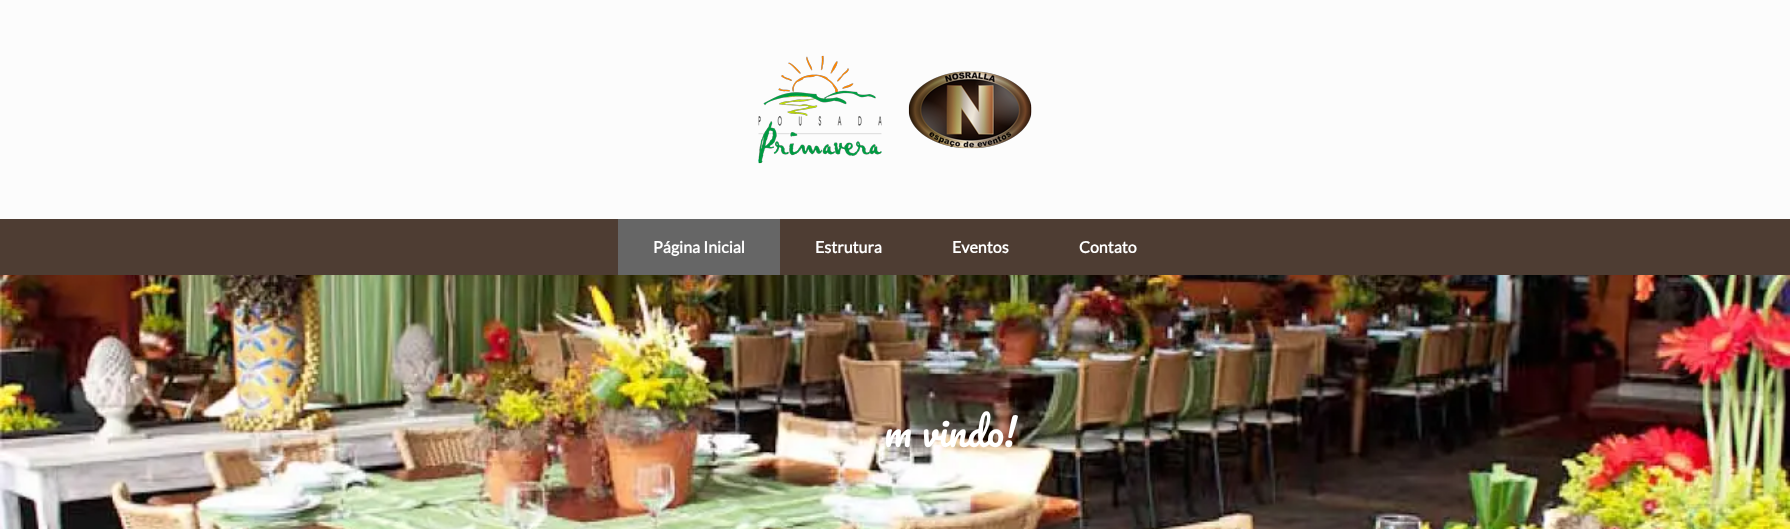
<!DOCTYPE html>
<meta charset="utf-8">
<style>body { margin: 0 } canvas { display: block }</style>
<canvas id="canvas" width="1790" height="529"></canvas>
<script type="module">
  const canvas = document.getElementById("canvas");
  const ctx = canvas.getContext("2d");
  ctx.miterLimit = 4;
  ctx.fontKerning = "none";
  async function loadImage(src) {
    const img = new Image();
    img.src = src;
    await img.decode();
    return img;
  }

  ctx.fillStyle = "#fcfcfc";
  ctx.fillRect(0, 0, 1790, 529);
  ctx.drawImage(await loadImage("img1.png"), 758, 55, 274, 109);
  ctx.fillStyle = "#4e3d33";
  ctx.fillRect(0, 219, 1790, 56);
  ctx.fillStyle = "#666666";
  ctx.fillRect(618, 219, 162, 56);
  ctx.font = "bold 16px Lato";
  ctx.fillStyle = "#ffffff";
  ctx.fillText("Página Inicial", 653, 253);
  ctx.fillText("Estrutura", 815, 253);
  ctx.fillText("Eventos", 952, 253);
  ctx.fillText("Contato", 1079, 253);
  ctx.drawImage(await loadImage("img2.png"), 0, 275, 1790, 254);
  ctx.font = "38px Pacifico";
  ctx.fillText("m vindo!", 884, 447);
</script>
